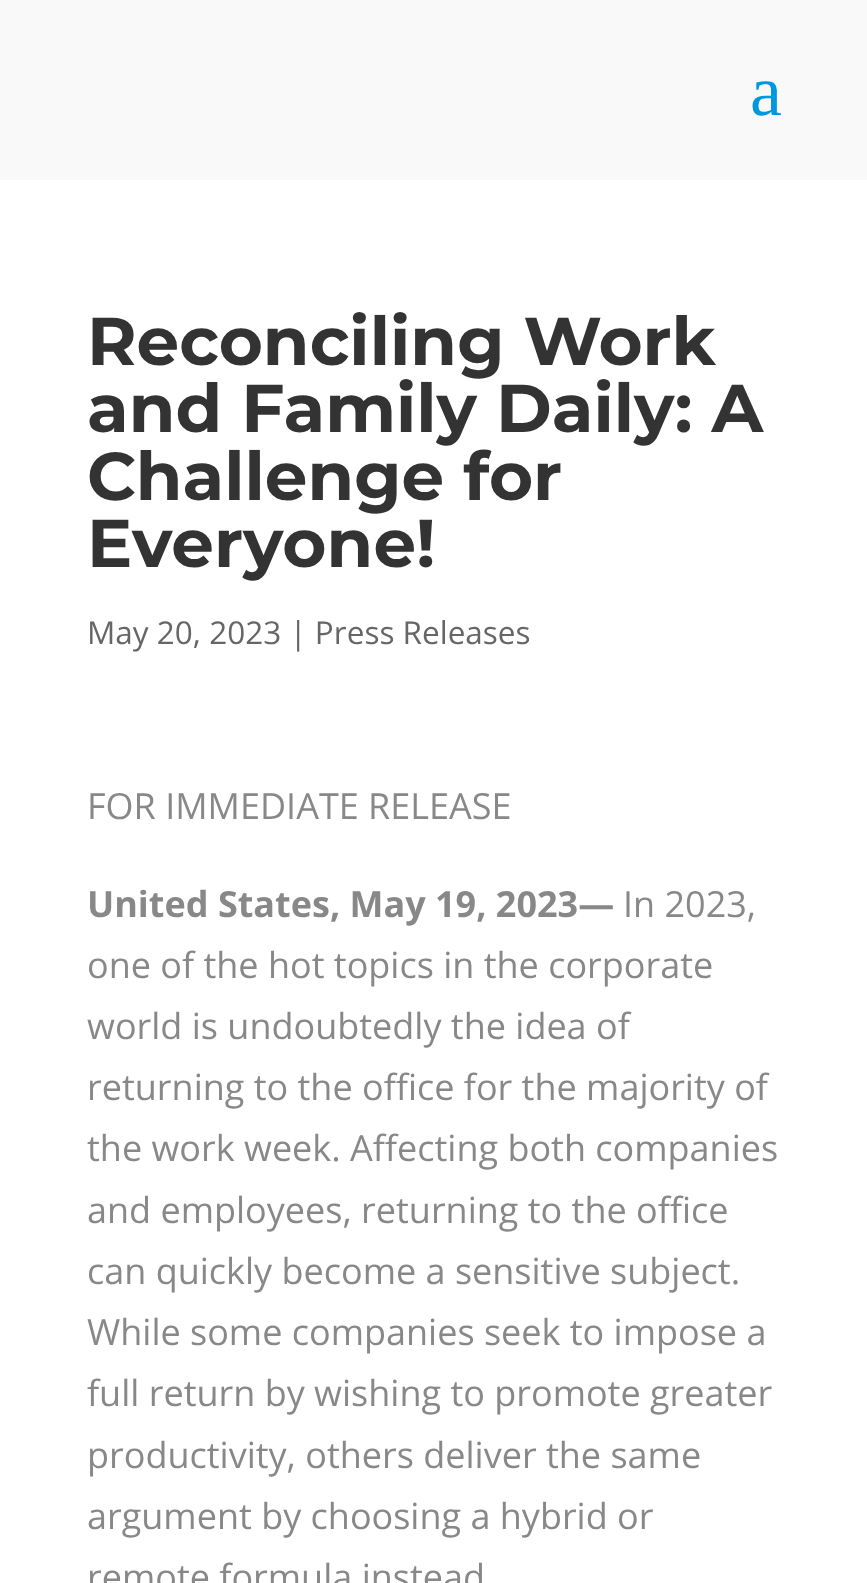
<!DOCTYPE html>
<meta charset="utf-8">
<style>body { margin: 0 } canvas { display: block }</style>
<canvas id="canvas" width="867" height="1583"></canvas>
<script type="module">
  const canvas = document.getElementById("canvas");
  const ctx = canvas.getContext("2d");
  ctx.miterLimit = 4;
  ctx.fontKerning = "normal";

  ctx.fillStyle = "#ffffff";
  ctx.fillRect(0, 0, 867, 1583);
  ctx.fillStyle = "#f9f9f9";
  ctx.fillRect(0, 0, 867, 180);
  ctx.font = "72px Liberation Serif";
  ctx.fillStyle = "#0097e2";
  ctx.fillText("a", 750, 115);
  ctx.font = "100 67.5px Montserrat";
  ctx.fillStyle = "#333333";
  ctx.fillText("Reconciling Work", 87, 365);
  ctx.fillText("and Family Daily: A", 87, 432);
  ctx.fillText("Challenge for", 87, 500);
  ctx.fillText("Everyone!", 87, 567);
  ctx.font = "31.5px Open Sans";
  ctx.fillStyle = "#666666";
  ctx.fillText("May 20, 2023 | Press Releases", 87, 644);
  ctx.font = "36px Open Sans";
  ctx.fillStyle = "#888888";
  ctx.fillText("FOR IMMEDIATE RELEASE", 87, 819);
  ctx.font = "bold 36px Open Sans";
  ctx.fillText("United States, May 19, 2023—", 87, 917);
  ctx.font = "36px Open Sans";
  ctx.fillText("In 2023,", 623, 917);
  ctx.fillText("one of the hot topics in the corporate", 87, 978);
  ctx.fillText("world is undoubtedly the idea of", 87, 1039);
  ctx.fillText("returning to the office for the majority of", 87, 1100);
  ctx.fillText("the work week. Affecting both companies", 87, 1161);
  ctx.fillText("and employees, returning to the office", 87, 1223);
  ctx.fillText("can quickly become a sensitive subject.", 87, 1284);
  ctx.fillText("While some companies seek to impose a", 87, 1345);
  ctx.fillText("full return by wishing to promote greater", 87, 1406);
  ctx.fillText("productivity, others deliver the same", 87, 1468);
  ctx.fillText("argument by choosing a hybrid or", 87, 1529);
  ctx.fillText("remote formula instead", 87, 1590);
</script>
